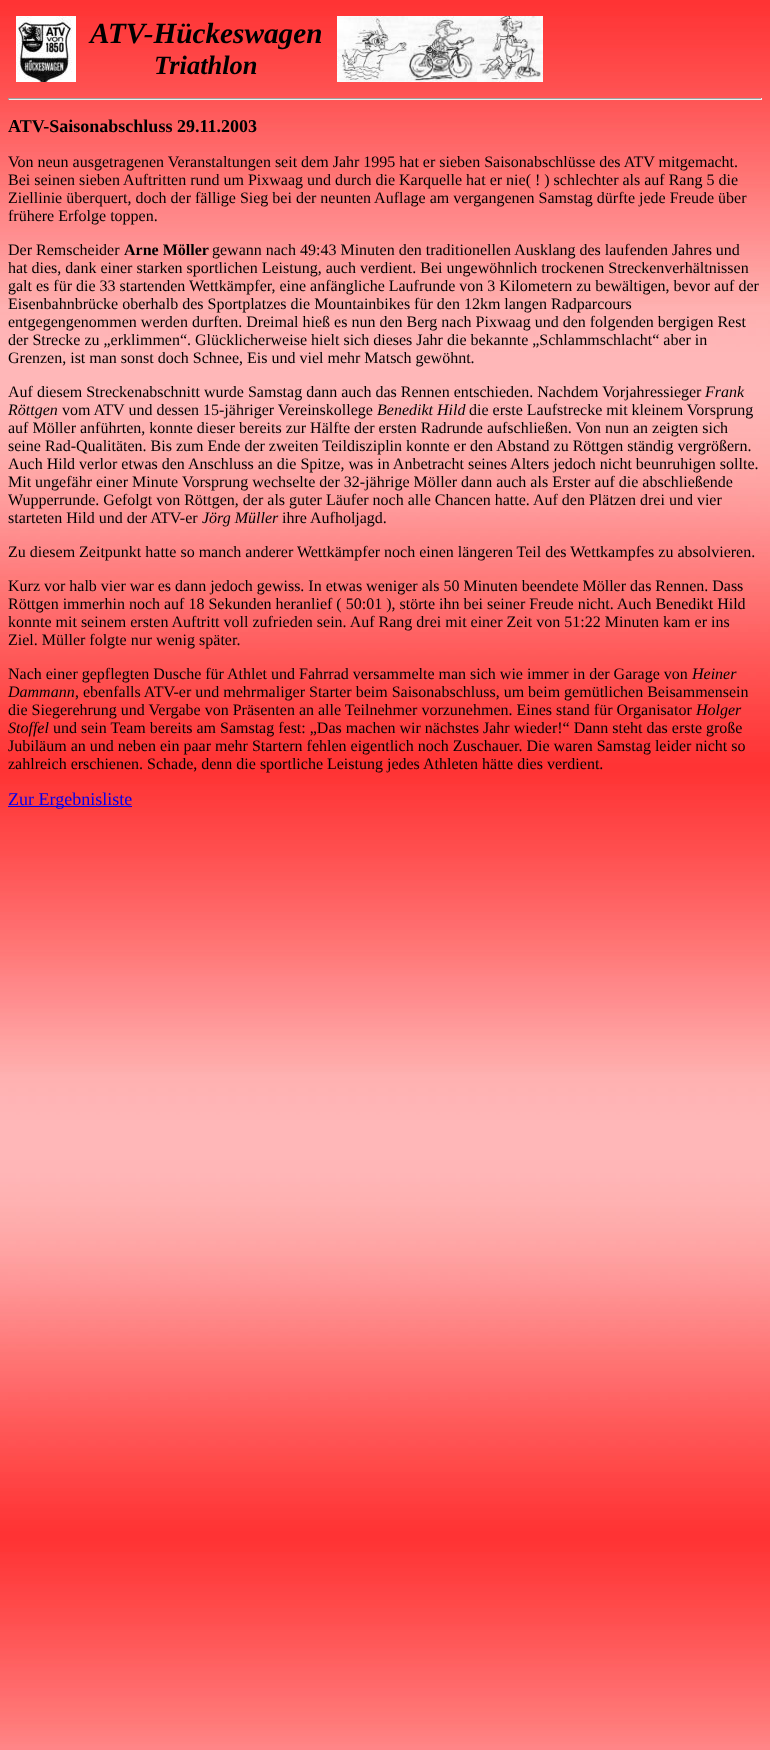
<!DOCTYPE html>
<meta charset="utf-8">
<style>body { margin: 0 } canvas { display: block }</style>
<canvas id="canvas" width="770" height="1750"></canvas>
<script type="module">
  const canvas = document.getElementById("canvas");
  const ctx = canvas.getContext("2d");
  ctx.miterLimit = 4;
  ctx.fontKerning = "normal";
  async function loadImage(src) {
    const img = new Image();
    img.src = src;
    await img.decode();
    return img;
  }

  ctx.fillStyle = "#ffffff";
  ctx.fillRect(0, 0, 770, 1750);
  ctx.drawImage(await loadImage("img1.png"), 0, 0, 770, 1750);
  ctx.drawImage(await loadImage("img2.png"), 16, 16, 60, 66);
  ctx.font = "italic bold 29.25px Liberation Serif";
  ctx.fillStyle = "#000000";
  ctx.fillText("ATV-Hückeswagen", 90, 43);
  ctx.font = "italic bold 26.5px Liberation Serif";
  ctx.fillText("Triathlon", 154, 74);
  ctx.drawImage(await loadImage("img3.png"), 337, 16, 71, 66);
  ctx.drawImage(await loadImage("img4.png"), 408, 16, 69, 66);
  ctx.drawImage(await loadImage("img5.png"), 477, 16, 66, 66);
  ctx.fillStyle = "#9f9f9f";
  ctx.fillRect(8, 98, 754, 1);
  ctx.fillStyle = "#eeeeee";
  ctx.fillRect(761, 98, 1, 2);
  ctx.fillRect(8, 99, 754, 1);
  ctx.fillStyle = "#9f9f9f";
  ctx.fillRect(8, 98, 1, 2);
  ctx.font = "bold 18px Liberation Serif";
  ctx.fillStyle = "#000000";
  ctx.fillText("ATV-Saisonabschluss 29.11.2003", 8, 132);
  ctx.font = "16px Liberation Serif";
  ctx.fillText("Von neun ausgetragenen Veranstaltungen seit dem Jahr 1995 hat er sieben Saisonabschlüsse des ATV mitgemacht.", 8, 167);
  ctx.fillText("Bei seinen sieben Auftritten rund um Pixwaag und durch die Karquelle hat er nie( ! ) schlechter als auf Rang 5 die", 8, 185);
  ctx.fillText("Ziellinie überquert, doch der fällige Sieg bei der neunten Auflage am vergangenen Samstag dürfte jede Freude über", 8, 203);
  ctx.fillText("frühere Erfolge toppen.", 8, 221);
  ctx.fillText("Der Remscheider", 8, 255);
  ctx.font = "bold 16px Liberation Serif";
  ctx.fillText("Arne Möller", 124, 255);
  ctx.font = "16px Liberation Serif";
  ctx.fillText("gewann nach 49:43 Minuten den traditionellen Ausklang des laufenden Jahres und", 212, 255);
  ctx.fillText("hat dies, dank einer starken sportlichen Leistung, auch verdient. Bei ungewöhnlich trockenen Streckenverhältnissen", 8, 273);
  ctx.fillText("galt es für die 33 startenden Wettkämpfer, eine anfängliche Laufrunde von 3 Kilometern zu bewältigen, bevor auf der", 8, 291);
  ctx.fillText("Eisenbahnbrücke oberhalb des Sportplatzes die Mountainbikes für den 12km langen Radparcours", 8, 309);
  ctx.fillText("entgegengenommen werden durften. Dreimal hieß es nun den Berg nach Pixwaag und den folgenden bergigen Rest", 8, 327);
  ctx.fillText("der Strecke zu „erklimmen“. Glücklicherweise hielt sich dieses Jahr die bekannte „Schlammschlacht“ aber in", 8, 345);
  ctx.fillText("Grenzen, ist man sonst doch Schnee, Eis und viel mehr Matsch gewöhnt.", 8, 363);
  ctx.fillText("Auf diesem Streckenabschnitt wurde Samstag dann auch das Rennen entschieden. Nachdem Vorjahressieger", 8, 397);
  ctx.font = "italic 16px Liberation Serif";
  ctx.fillText("Frank", 705, 397);
  ctx.fillText("Röttgen", 8, 415);
  ctx.font = "16px Liberation Serif";
  ctx.fillText("vom ATV und dessen 15-jähriger Vereinskollege", 62, 415);
  ctx.font = "italic 16px Liberation Serif";
  ctx.fillText("Benedikt Hild", 377, 415);
  ctx.font = "16px Liberation Serif";
  ctx.fillText("die erste Laufstrecke mit kleinem Vorsprung", 469, 415);
  ctx.fillText("auf Möller anführten, konnte dieser bereits zur Hälfte der ersten Radrunde aufschließen. Von nun an zeigten sich", 8, 433);
  ctx.fillText("seine Rad-Qualitäten. Bis zum Ende der zweiten Teildisziplin konnte er den Abstand zu Röttgen ständig vergrößern.", 8, 451);
  ctx.fillText("Auch Hild verlor etwas den Anschluss an die Spitze, was in Anbetracht seines Alters jedoch nicht beunruhigen sollte.", 8, 469);
  ctx.fillText("Mit ungefähr einer Minute Vorsprung wechselte der 32-jährige Möller dann auch als Erster auf die abschließende", 8, 487);
  ctx.fillText("Wupperrunde. Gefolgt von Röttgen, der als guter Läufer noch alle Chancen hatte. Auf den Plätzen drei und vier", 8, 505);
  ctx.fillText("starteten Hild und der ATV-er", 8, 523);
  ctx.font = "italic 16px Liberation Serif";
  ctx.fillText("Jörg Müller", 202, 523);
  ctx.font = "16px Liberation Serif";
  ctx.fillText("ihre Aufholjagd.", 282, 523);
  ctx.fillText("Zu diesem Zeitpunkt hatte so manch anderer Wettkämpfer noch einen längeren Teil des Wettkampfes zu absolvieren.", 8, 557);
  ctx.fillText("Kurz vor halb vier war es dann jedoch gewiss. In etwas weniger als 50 Minuten beendete Möller das Rennen. Dass", 8, 591);
  ctx.fillText("Röttgen immerhin noch auf 18 Sekunden heranlief ( 50:01 ), störte ihn bei seiner Freude nicht. Auch Benedikt Hild", 8, 609);
  ctx.fillText("konnte mit seinem ersten Auftritt voll zufrieden sein. Auf Rang drei mit einer Zeit von 51:22 Minuten kam er ins", 8, 627);
  ctx.fillText("Ziel. Müller folgte nur wenig später.", 8, 645);
  ctx.fillText("Nach einer gepflegten Dusche für Athlet und Fahrrad versammelte man sich wie immer in der Garage von", 8, 679);
  ctx.font = "italic 16px Liberation Serif";
  ctx.fillText("Heiner", 692, 679);
  ctx.fillText("Dammann", 8, 697);
  ctx.font = "16px Liberation Serif";
  ctx.fillText(", ebenfalls ATV-er und mehrmaliger Starter beim Saisonabschluss, um beim gemütlichen Beisammensein", 75, 697);
  ctx.fillText("die Siegerehrung und Vergabe von Präsenten an alle Teilnehmer vorzunehmen. Eines stand für Organisator", 8, 715);
  ctx.font = "italic 16px Liberation Serif";
  ctx.fillText("Holger", 696, 715);
  ctx.fillText("Stoffel", 8, 733);
  ctx.font = "16px Liberation Serif";
  ctx.fillText("und sein Team bereits am Samstag fest: „Das machen wir nächstes Jahr wieder!“ Dann steht das erste große", 53, 733);
  ctx.fillText("Jubiläum an und neben ein paar mehr Startern fehlen eigentlich noch Zuschauer. Die waren Samstag leider nicht so", 8, 751);
  ctx.fillText("zahlreich erschienen. Schade, denn die sportliche Leistung jedes Athleten hätte dies verdient.", 8, 769);
  ctx.fillStyle = "#0000ee";
  ctx.fillRect(8, 806, 124, 1);
  ctx.font = "18px Liberation Serif";
  ctx.fillText("Zur Ergebnisliste", 8, 805);
</script>
